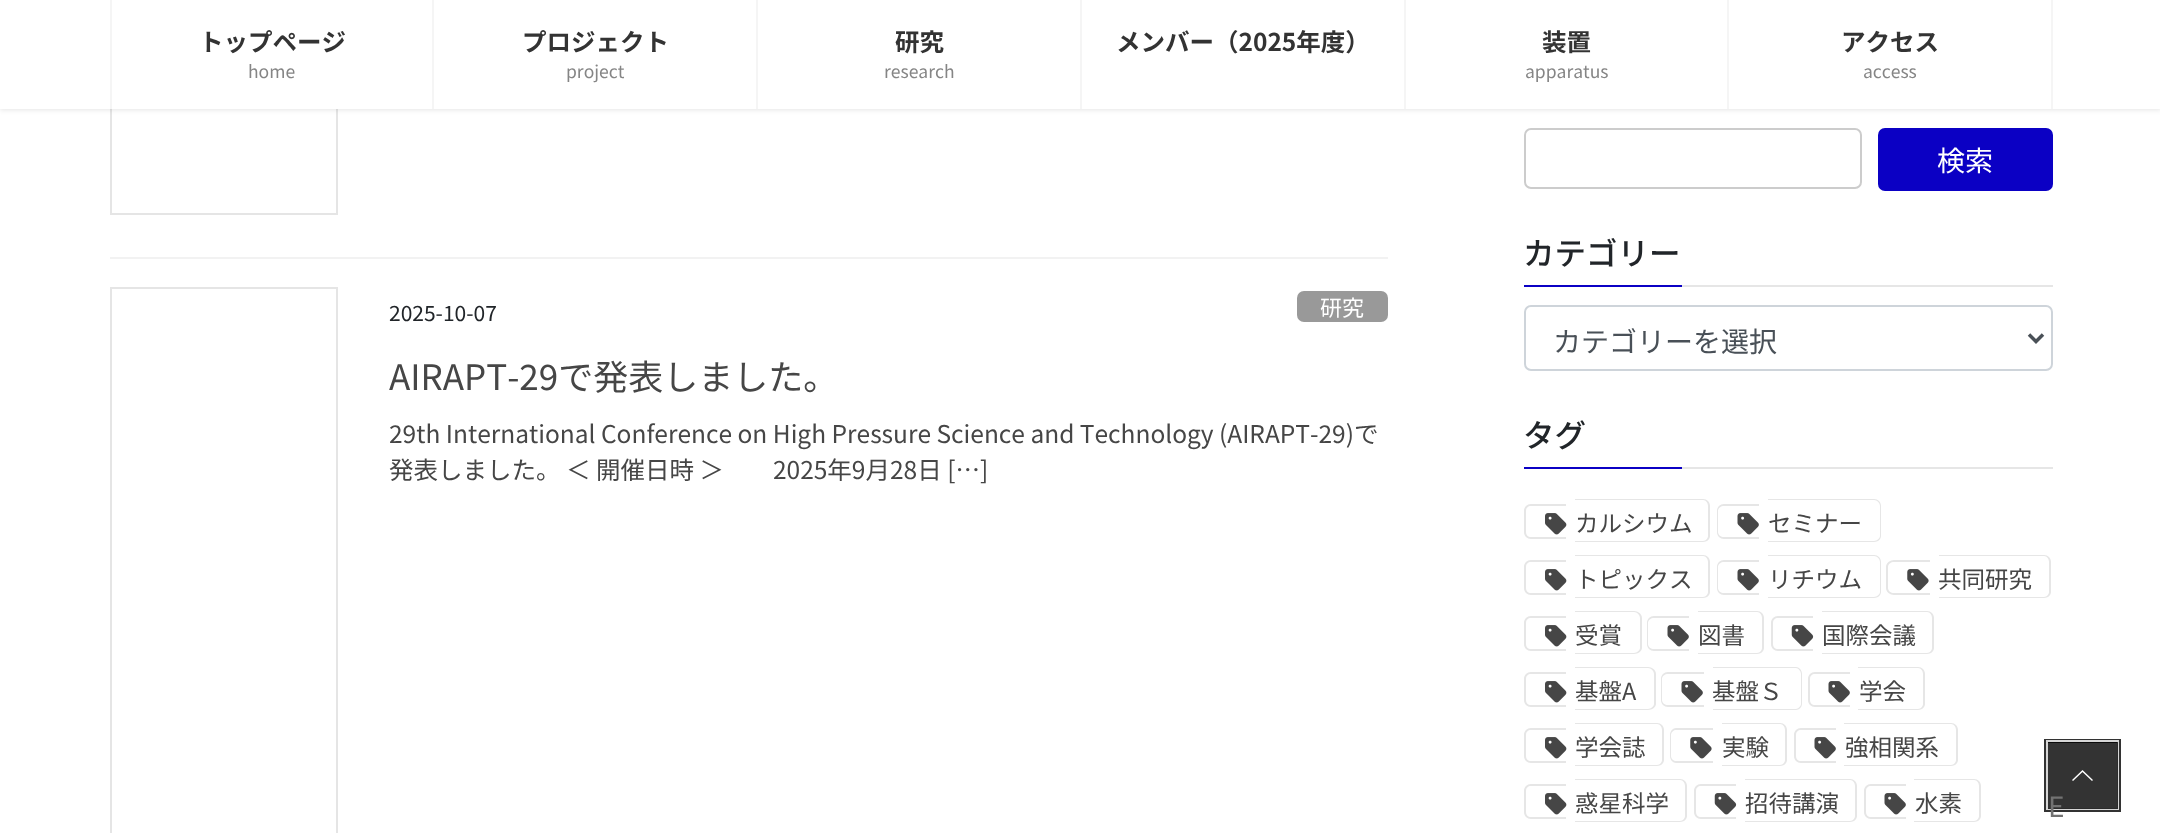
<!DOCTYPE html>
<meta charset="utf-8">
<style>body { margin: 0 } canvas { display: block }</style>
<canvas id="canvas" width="2160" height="833"></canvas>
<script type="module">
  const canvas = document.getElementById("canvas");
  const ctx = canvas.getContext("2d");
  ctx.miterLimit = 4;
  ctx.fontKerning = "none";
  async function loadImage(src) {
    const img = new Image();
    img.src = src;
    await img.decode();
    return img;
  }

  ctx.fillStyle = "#ffffff";
  ctx.fillRect(0, 0, 2160, 833);
  ctx.strokeStyle = "#e5e5e5";
  ctx.lineWidth = 2;
  ctx.strokeRect(111, -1, 226, 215);
  ctx.fillStyle = "rgba(0, 0, 0, 0.1)";
  ctx.filter = "blur(2.5px)";
  ctx.beginPath();
  ctx.rect(0, 2, 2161, 108);
  ctx.fill();
  ctx.filter = "none";
  ctx.fillStyle = "#ffffff";
  ctx.fillRect(0, 0, 2160, 109);
  ctx.fillStyle = "#f5f5f5";
  ctx.fillRect(110, 0, 2, 109);
  ctx.font = "bold 24.5px Noto Sans JP";
  ctx.fillStyle = "#333333";
  ctx.fillText("トップページ", 199, 51);
  ctx.font = "17.5px Noto Sans JP";
  ctx.fillStyle = "#858585";
  ctx.fillText("home", 248, 78);
  ctx.fillStyle = "#f5f5f5";
  ctx.fillRect(432, 0, 2, 109);
  ctx.font = "bold 24.5px Noto Sans JP";
  ctx.fillStyle = "#333333";
  ctx.fillText("プロジェクト", 522, 51);
  ctx.font = "17.5px Noto Sans JP";
  ctx.fillStyle = "#858585";
  ctx.fillText("project", 566, 78);
  ctx.fillStyle = "#f5f5f5";
  ctx.fillRect(756, 0, 2, 109);
  ctx.font = "bold 24.5px Noto Sans JP";
  ctx.fillStyle = "#333333";
  ctx.fillText("研究", 895, 51);
  ctx.font = "17.5px Noto Sans JP";
  ctx.fillStyle = "#858585";
  ctx.fillText("research", 884, 78);
  ctx.fillStyle = "#f5f5f5";
  ctx.fillRect(1080, 0, 2, 109);
  ctx.font = "bold 24.5px Noto Sans JP";
  ctx.fillStyle = "#333333";
  ctx.fillText("メンバー（2025年度）", 1116, 51);
  ctx.fillStyle = "#f5f5f5";
  ctx.fillRect(1404, 0, 2, 109);
  ctx.fillStyle = "#333333";
  ctx.fillText("装置", 1542, 51);
  ctx.font = "17.5px Noto Sans JP";
  ctx.fillStyle = "#858585";
  ctx.fillText("apparatus", 1525, 78);
  ctx.fillStyle = "#f5f5f5";
  ctx.fillRect(2051, 0, 2, 109);
  ctx.fillRect(1727, 0, 2, 109);
  ctx.font = "bold 24.5px Noto Sans JP";
  ctx.fillStyle = "#333333";
  ctx.fillText("アクセス", 1841, 51);
  ctx.font = "17.5px Noto Sans JP";
  ctx.fillStyle = "#858585";
  ctx.fillText("access", 1863, 78);
  ctx.fillStyle = "#f2f2f2";
  ctx.fillRect(110, 257, 1278, 2);
  ctx.strokeRect(111, 288, 226, 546);
  ctx.font = "21px Noto Sans JP";
  ctx.fillStyle = "#212529";
  ctx.fillText("2025-10-07", 389, 321);
  ctx.fillStyle = "#999999";
  ctx.beginPath();
  ctx.roundRect(1297, 291, 91, 31, 7);
  ctx.fill();
  ctx.font = "22px Noto Sans JP";
  ctx.fillStyle = "#ffffff";
  ctx.fillText("研究", 1320, 316);
  ctx.font = "35px Noto Sans JP";
  ctx.fillStyle = "#464646";
  ctx.fillText("AIRAPT-29で発表しました。", 389, 390);
  ctx.font = "24.5px Noto Sans JP";
  ctx.fillText("29th International Conference on High Pressure Science and Technology", 389, 443);
  ctx.fillText("(AIRAPT-29)で", 1219, 443);
  ctx.fillText("発表しました。 ＜ 開催日時 ＞　　2025年9月28日 […]", 389, 479);
  ctx.beginPath();
  ctx.roundRect(1525, 129, 336, 59, 6);
  ctx.strokeStyle = "#cccccc";
  ctx.stroke();
  ctx.fillStyle = "#0b00c4";
  ctx.beginPath();
  ctx.roundRect(1878, 128, 175, 63, 7);
  ctx.fill();
  ctx.font = "28px Noto Sans JP";
  ctx.fillStyle = "#ffffff";
  ctx.fillText("検索", 1937, 171);
  ctx.fillStyle = "#e6e6e6";
  ctx.fillRect(1682, 285, 371, 2);
  ctx.font = "500 31.5px Noto Sans JP";
  ctx.fillStyle = "#212529";
  ctx.fillText("カテゴリー", 1523, 265);
  ctx.fillStyle = "#0b00c4";
  ctx.fillRect(1524, 285, 158, 2);
  ctx.beginPath();
  ctx.roundRect(1525, 306, 527, 64, 6);
  ctx.strokeStyle = "#ced4da";
  ctx.stroke();
  ctx.beginPath();
  ctx.moveTo(2029, 334.5);
  ctx.lineTo(2036, 341.5);
  ctx.lineTo(2043, 334.5);
  ctx.strokeStyle = "#495057";
  ctx.lineWidth = 3.5;
  ctx.stroke();
  ctx.font = "28px Noto Sans JP";
  ctx.fillStyle = "#495057";
  ctx.fillText("カテゴリーを選択", 1553, 352);
  ctx.fillStyle = "#e6e6e6";
  ctx.fillRect(1682, 467, 371, 2);
  ctx.font = "500 31.5px Noto Sans JP";
  ctx.fillStyle = "#212529";
  ctx.fillText("タグ", 1523, 447);
  ctx.fillStyle = "#0b00c4";
  ctx.fillRect(1524, 467, 158, 2);
  ctx.fillStyle = "#e6e6e6";
  ctx.beginPath();
  ctx.moveTo(1531, 504);
  ctx.lineTo(1566, 504);
  ctx.lineTo(1566, 539);
  ctx.lineTo(1531, 539);
  ctx.bezierCurveTo(1527, 539, 1524, 536, 1524, 532);
  ctx.lineTo(1524, 511);
  ctx.bezierCurveTo(1524, 507, 1527, 504, 1531, 504);
  ctx.closePath();
  ctx.moveTo(1531, 506);
  ctx.lineTo(1566, 506);
  ctx.lineTo(1566, 537);
  ctx.lineTo(1531, 537);
  ctx.bezierCurveTo(1528, 537, 1526, 535, 1526, 532);
  ctx.lineTo(1526, 511);
  ctx.bezierCurveTo(1526, 508, 1528, 506, 1531, 506);
  ctx.closePath();
  ctx.fill("evenodd");
  ctx.drawImage(await loadImage("img1.png"), 1545, 513, 22, 22);
  ctx.beginPath();
  ctx.moveTo(1575, 499);
  ctx.lineTo(1703, 499);
  ctx.bezierCurveTo(1707, 499, 1710, 502, 1710, 506);
  ctx.lineTo(1710, 536);
  ctx.bezierCurveTo(1710, 539, 1707, 542, 1703, 542);
  ctx.lineTo(1575, 542);
  ctx.closePath();
  ctx.moveTo(1575, 500);
  ctx.lineTo(1703, 500);
  ctx.bezierCurveTo(1706, 500, 1708, 503, 1708, 506);
  ctx.lineTo(1708, 536);
  ctx.bezierCurveTo(1708, 538, 1706, 541, 1703, 541);
  ctx.lineTo(1575, 541);
  ctx.closePath();
  ctx.fill("evenodd");
  ctx.font = "23.5px Noto Sans JP";
  ctx.fillStyle = "#464646";
  ctx.fillText("カルシウム", 1575, 532);
  ctx.fillStyle = "#e6e6e6";
  ctx.beginPath();
  ctx.moveTo(1724, 504);
  ctx.lineTo(1759, 504);
  ctx.lineTo(1759, 539);
  ctx.lineTo(1724, 539);
  ctx.bezierCurveTo(1720, 539, 1717, 536, 1717, 532);
  ctx.lineTo(1717, 511);
  ctx.bezierCurveTo(1717, 507, 1720, 504, 1724, 504);
  ctx.closePath();
  ctx.moveTo(1724, 506);
  ctx.lineTo(1759, 506);
  ctx.lineTo(1759, 537);
  ctx.lineTo(1724, 537);
  ctx.bezierCurveTo(1721, 537, 1718, 535, 1718, 532);
  ctx.lineTo(1718, 511);
  ctx.bezierCurveTo(1718, 508, 1721, 506, 1724, 506);
  ctx.closePath();
  ctx.fill("evenodd");
  ctx.drawImage(await loadImage("img2.png"), 1737, 513, 22, 22);
  ctx.beginPath();
  ctx.moveTo(1768, 499);
  ctx.lineTo(1874, 499);
  ctx.bezierCurveTo(1878, 499, 1881, 502, 1881, 506);
  ctx.lineTo(1881, 536);
  ctx.bezierCurveTo(1881, 539, 1878, 542, 1874, 542);
  ctx.lineTo(1768, 542);
  ctx.closePath();
  ctx.moveTo(1768, 500);
  ctx.lineTo(1874, 500);
  ctx.bezierCurveTo(1877, 500, 1880, 503, 1880, 506);
  ctx.lineTo(1880, 536);
  ctx.bezierCurveTo(1880, 538, 1877, 541, 1874, 541);
  ctx.lineTo(1768, 541);
  ctx.closePath();
  ctx.fill("evenodd");
  ctx.fillStyle = "#464646";
  ctx.fillText("セミナー", 1768, 532);
  ctx.fillStyle = "#e6e6e6";
  ctx.beginPath();
  ctx.moveTo(1531, 560);
  ctx.lineTo(1566, 560);
  ctx.lineTo(1566, 595);
  ctx.lineTo(1531, 595);
  ctx.bezierCurveTo(1527, 595, 1524, 592, 1524, 588);
  ctx.lineTo(1524, 567);
  ctx.bezierCurveTo(1524, 563, 1527, 560, 1531, 560);
  ctx.closePath();
  ctx.moveTo(1531, 562);
  ctx.lineTo(1566, 562);
  ctx.lineTo(1566, 593);
  ctx.lineTo(1531, 593);
  ctx.bezierCurveTo(1528, 593, 1526, 591, 1526, 588);
  ctx.lineTo(1526, 567);
  ctx.bezierCurveTo(1526, 564, 1528, 562, 1531, 562);
  ctx.closePath();
  ctx.fill("evenodd");
  ctx.drawImage(await loadImage("img1.png"), 1545, 569, 22, 22);
  ctx.beginPath();
  ctx.moveTo(1575, 555);
  ctx.lineTo(1703, 555);
  ctx.bezierCurveTo(1707, 555, 1710, 558, 1710, 562);
  ctx.lineTo(1710, 592);
  ctx.bezierCurveTo(1710, 595, 1707, 598, 1703, 598);
  ctx.lineTo(1575, 598);
  ctx.closePath();
  ctx.moveTo(1575, 556);
  ctx.lineTo(1703, 556);
  ctx.bezierCurveTo(1706, 556, 1708, 559, 1708, 562);
  ctx.lineTo(1708, 592);
  ctx.bezierCurveTo(1708, 594, 1706, 597, 1703, 597);
  ctx.lineTo(1575, 597);
  ctx.closePath();
  ctx.fill("evenodd");
  ctx.fillStyle = "#464646";
  ctx.fillText("トピックス", 1575, 588);
  ctx.fillStyle = "#e6e6e6";
  ctx.beginPath();
  ctx.moveTo(1724, 560);
  ctx.lineTo(1759, 560);
  ctx.lineTo(1759, 595);
  ctx.lineTo(1724, 595);
  ctx.bezierCurveTo(1720, 595, 1717, 592, 1717, 588);
  ctx.lineTo(1717, 567);
  ctx.bezierCurveTo(1717, 563, 1720, 560, 1724, 560);
  ctx.closePath();
  ctx.moveTo(1724, 562);
  ctx.lineTo(1759, 562);
  ctx.lineTo(1759, 593);
  ctx.lineTo(1724, 593);
  ctx.bezierCurveTo(1721, 593, 1718, 591, 1718, 588);
  ctx.lineTo(1718, 567);
  ctx.bezierCurveTo(1718, 564, 1721, 562, 1724, 562);
  ctx.closePath();
  ctx.fill("evenodd");
  ctx.drawImage(await loadImage("img2.png"), 1737, 569, 22, 22);
  ctx.beginPath();
  ctx.moveTo(1768, 555);
  ctx.lineTo(1874, 555);
  ctx.bezierCurveTo(1878, 555, 1881, 558, 1881, 562);
  ctx.lineTo(1881, 592);
  ctx.bezierCurveTo(1881, 595, 1878, 598, 1874, 598);
  ctx.lineTo(1768, 598);
  ctx.closePath();
  ctx.moveTo(1768, 556);
  ctx.lineTo(1874, 556);
  ctx.bezierCurveTo(1877, 556, 1880, 559, 1880, 562);
  ctx.lineTo(1880, 592);
  ctx.bezierCurveTo(1880, 594, 1877, 597, 1874, 597);
  ctx.lineTo(1768, 597);
  ctx.closePath();
  ctx.fill("evenodd");
  ctx.fillStyle = "#464646";
  ctx.fillText("リチウム", 1768, 588);
  ctx.fillStyle = "#e6e6e6";
  ctx.beginPath();
  ctx.moveTo(1894, 560);
  ctx.lineTo(1930, 560);
  ctx.lineTo(1930, 595);
  ctx.lineTo(1894, 595);
  ctx.bezierCurveTo(1890, 595, 1886, 592, 1886, 588);
  ctx.lineTo(1886, 567);
  ctx.bezierCurveTo(1886, 563, 1890, 560, 1894, 560);
  ctx.closePath();
  ctx.moveTo(1894, 562);
  ctx.lineTo(1930, 562);
  ctx.lineTo(1930, 593);
  ctx.lineTo(1894, 593);
  ctx.bezierCurveTo(1891, 593, 1888, 591, 1888, 588);
  ctx.lineTo(1888, 567);
  ctx.bezierCurveTo(1888, 564, 1891, 562, 1894, 562);
  ctx.closePath();
  ctx.fill("evenodd");
  ctx.drawImage(await loadImage("img3.png"), 1907, 569, 22, 22);
  ctx.beginPath();
  ctx.moveTo(1939, 555);
  ctx.lineTo(2044, 555);
  ctx.bezierCurveTo(2048, 555, 2051, 558, 2051, 562);
  ctx.lineTo(2051, 592);
  ctx.bezierCurveTo(2051, 595, 2048, 598, 2044, 598);
  ctx.lineTo(1939, 598);
  ctx.closePath();
  ctx.moveTo(1939, 556);
  ctx.lineTo(2044, 556);
  ctx.bezierCurveTo(2047, 556, 2049, 559, 2049, 562);
  ctx.lineTo(2049, 592);
  ctx.bezierCurveTo(2049, 594, 2047, 597, 2044, 597);
  ctx.lineTo(1939, 597);
  ctx.closePath();
  ctx.fill("evenodd");
  ctx.fillStyle = "#464646";
  ctx.fillText("共同研究", 1938, 588);
  ctx.fillStyle = "#e6e6e6";
  ctx.beginPath();
  ctx.moveTo(1531, 616);
  ctx.lineTo(1566, 616);
  ctx.lineTo(1566, 651);
  ctx.lineTo(1531, 651);
  ctx.bezierCurveTo(1527, 651, 1524, 648, 1524, 644);
  ctx.lineTo(1524, 623);
  ctx.bezierCurveTo(1524, 619, 1527, 616, 1531, 616);
  ctx.closePath();
  ctx.moveTo(1531, 618);
  ctx.lineTo(1566, 618);
  ctx.lineTo(1566, 649);
  ctx.lineTo(1531, 649);
  ctx.bezierCurveTo(1528, 649, 1526, 647, 1526, 644);
  ctx.lineTo(1526, 623);
  ctx.bezierCurveTo(1526, 620, 1528, 618, 1531, 618);
  ctx.closePath();
  ctx.fill("evenodd");
  ctx.drawImage(await loadImage("img1.png"), 1545, 625, 22, 22);
  ctx.beginPath();
  ctx.moveTo(1575, 611);
  ctx.lineTo(1634, 611);
  ctx.bezierCurveTo(1638, 611, 1642, 614, 1642, 618);
  ctx.lineTo(1642, 648);
  ctx.bezierCurveTo(1642, 651, 1638, 654, 1634, 654);
  ctx.lineTo(1575, 654);
  ctx.closePath();
  ctx.moveTo(1575, 612);
  ctx.lineTo(1634, 612);
  ctx.bezierCurveTo(1637, 612, 1640, 615, 1640, 618);
  ctx.lineTo(1640, 648);
  ctx.bezierCurveTo(1640, 650, 1637, 653, 1634, 653);
  ctx.lineTo(1575, 653);
  ctx.closePath();
  ctx.fill("evenodd");
  ctx.fillStyle = "#464646";
  ctx.fillText("受賞", 1575, 644);
  ctx.fillStyle = "#e6e6e6";
  ctx.beginPath();
  ctx.moveTo(1654, 616);
  ctx.lineTo(1689, 616);
  ctx.lineTo(1689, 651);
  ctx.lineTo(1654, 651);
  ctx.bezierCurveTo(1650, 651, 1647, 648, 1647, 644);
  ctx.lineTo(1647, 623);
  ctx.bezierCurveTo(1647, 619, 1650, 616, 1654, 616);
  ctx.closePath();
  ctx.moveTo(1654, 618);
  ctx.lineTo(1689, 618);
  ctx.lineTo(1689, 649);
  ctx.lineTo(1654, 649);
  ctx.bezierCurveTo(1651, 649, 1648, 647, 1648, 644);
  ctx.lineTo(1648, 623);
  ctx.bezierCurveTo(1648, 620, 1651, 618, 1654, 618);
  ctx.closePath();
  ctx.fill("evenodd");
  ctx.drawImage(await loadImage("img2.png"), 1667, 625, 22, 22);
  ctx.beginPath();
  ctx.moveTo(1698, 611);
  ctx.lineTo(1757, 611);
  ctx.bezierCurveTo(1761, 611, 1764, 614, 1764, 618);
  ctx.lineTo(1764, 648);
  ctx.bezierCurveTo(1764, 651, 1761, 654, 1757, 654);
  ctx.lineTo(1698, 654);
  ctx.closePath();
  ctx.moveTo(1698, 612);
  ctx.lineTo(1757, 612);
  ctx.bezierCurveTo(1760, 612, 1762, 615, 1762, 618);
  ctx.lineTo(1762, 648);
  ctx.bezierCurveTo(1762, 650, 1760, 653, 1757, 653);
  ctx.lineTo(1698, 653);
  ctx.closePath();
  ctx.fill("evenodd");
  ctx.fillStyle = "#464646";
  ctx.fillText("図書", 1698, 644);
  ctx.fillStyle = "#e6e6e6";
  ctx.beginPath();
  ctx.moveTo(1778, 616);
  ctx.lineTo(1813, 616);
  ctx.lineTo(1813, 651);
  ctx.lineTo(1778, 651);
  ctx.bezierCurveTo(1774, 651, 1771, 648, 1771, 644);
  ctx.lineTo(1771, 623);
  ctx.bezierCurveTo(1771, 619, 1774, 616, 1778, 616);
  ctx.closePath();
  ctx.moveTo(1778, 618);
  ctx.lineTo(1813, 618);
  ctx.lineTo(1813, 649);
  ctx.lineTo(1778, 649);
  ctx.bezierCurveTo(1775, 649, 1773, 647, 1773, 644);
  ctx.lineTo(1773, 623);
  ctx.bezierCurveTo(1773, 620, 1775, 618, 1778, 618);
  ctx.closePath();
  ctx.fill("evenodd");
  ctx.drawImage(await loadImage("img4.png"), 1791, 625, 23, 22);
  ctx.beginPath();
  ctx.moveTo(1822, 611);
  ctx.lineTo(1927, 611);
  ctx.bezierCurveTo(1931, 611, 1934, 614, 1934, 618);
  ctx.lineTo(1934, 648);
  ctx.bezierCurveTo(1934, 651, 1931, 654, 1927, 654);
  ctx.lineTo(1822, 654);
  ctx.closePath();
  ctx.moveTo(1822, 612);
  ctx.lineTo(1927, 612);
  ctx.bezierCurveTo(1930, 612, 1932, 615, 1932, 618);
  ctx.lineTo(1932, 648);
  ctx.bezierCurveTo(1932, 650, 1930, 653, 1927, 653);
  ctx.lineTo(1822, 653);
  ctx.closePath();
  ctx.fill("evenodd");
  ctx.fillStyle = "#464646";
  ctx.fillText("国際会議", 1822, 644);
  ctx.fillStyle = "#e6e6e6";
  ctx.beginPath();
  ctx.moveTo(1531, 672);
  ctx.lineTo(1566, 672);
  ctx.lineTo(1566, 707);
  ctx.lineTo(1531, 707);
  ctx.bezierCurveTo(1527, 707, 1524, 704, 1524, 700);
  ctx.lineTo(1524, 679);
  ctx.bezierCurveTo(1524, 675, 1527, 672, 1531, 672);
  ctx.closePath();
  ctx.moveTo(1531, 674);
  ctx.lineTo(1566, 674);
  ctx.lineTo(1566, 705);
  ctx.lineTo(1531, 705);
  ctx.bezierCurveTo(1528, 705, 1526, 703, 1526, 700);
  ctx.lineTo(1526, 679);
  ctx.bezierCurveTo(1526, 676, 1528, 674, 1531, 674);
  ctx.closePath();
  ctx.fill("evenodd");
  ctx.drawImage(await loadImage("img1.png"), 1545, 681, 22, 22);
  ctx.beginPath();
  ctx.moveTo(1575, 667);
  ctx.lineTo(1648, 667);
  ctx.bezierCurveTo(1652, 667, 1656, 670, 1656, 674);
  ctx.lineTo(1656, 704);
  ctx.bezierCurveTo(1656, 707, 1652, 710, 1648, 710);
  ctx.lineTo(1575, 710);
  ctx.closePath();
  ctx.moveTo(1575, 668);
  ctx.lineTo(1648, 668);
  ctx.bezierCurveTo(1651, 668, 1654, 671, 1654, 674);
  ctx.lineTo(1654, 704);
  ctx.bezierCurveTo(1654, 706, 1651, 709, 1648, 709);
  ctx.lineTo(1575, 709);
  ctx.closePath();
  ctx.fill("evenodd");
  ctx.fillStyle = "#464646";
  ctx.fillText("基盤A", 1575, 700);
  ctx.fillStyle = "#e6e6e6";
  ctx.beginPath();
  ctx.moveTo(1668, 672);
  ctx.lineTo(1704, 672);
  ctx.lineTo(1704, 707);
  ctx.lineTo(1668, 707);
  ctx.bezierCurveTo(1664, 707, 1661, 704, 1661, 700);
  ctx.lineTo(1661, 679);
  ctx.bezierCurveTo(1661, 675, 1664, 672, 1668, 672);
  ctx.closePath();
  ctx.moveTo(1668, 674);
  ctx.lineTo(1704, 674);
  ctx.lineTo(1704, 705);
  ctx.lineTo(1668, 705);
  ctx.bezierCurveTo(1665, 705, 1662, 703, 1662, 700);
  ctx.lineTo(1662, 679);
  ctx.bezierCurveTo(1662, 676, 1665, 674, 1668, 674);
  ctx.closePath();
  ctx.fill("evenodd");
  ctx.drawImage(await loadImage("img2.png"), 1681, 681, 22, 22);
  ctx.beginPath();
  ctx.moveTo(1713, 667);
  ctx.lineTo(1796, 667);
  ctx.bezierCurveTo(1799, 667, 1802, 670, 1802, 674);
  ctx.lineTo(1802, 704);
  ctx.bezierCurveTo(1802, 707, 1799, 710, 1796, 710);
  ctx.lineTo(1713, 710);
  ctx.closePath();
  ctx.moveTo(1713, 668);
  ctx.lineTo(1796, 668);
  ctx.bezierCurveTo(1798, 668, 1801, 671, 1801, 674);
  ctx.lineTo(1801, 704);
  ctx.bezierCurveTo(1801, 706, 1798, 709, 1796, 709);
  ctx.lineTo(1713, 709);
  ctx.closePath();
  ctx.fill("evenodd");
  ctx.fillStyle = "#464646";
  ctx.fillText("基盤Ｓ", 1712, 700);
  ctx.fillStyle = "#e6e6e6";
  ctx.beginPath();
  ctx.moveTo(1815, 672);
  ctx.lineTo(1850, 672);
  ctx.lineTo(1850, 707);
  ctx.lineTo(1815, 707);
  ctx.bezierCurveTo(1811, 707, 1808, 704, 1808, 700);
  ctx.lineTo(1808, 679);
  ctx.bezierCurveTo(1808, 675, 1811, 672, 1815, 672);
  ctx.closePath();
  ctx.moveTo(1815, 674);
  ctx.lineTo(1850, 674);
  ctx.lineTo(1850, 705);
  ctx.lineTo(1815, 705);
  ctx.bezierCurveTo(1812, 705, 1810, 703, 1810, 700);
  ctx.lineTo(1810, 679);
  ctx.bezierCurveTo(1810, 676, 1812, 674, 1815, 674);
  ctx.closePath();
  ctx.fill("evenodd");
  ctx.drawImage(await loadImage("img2.png"), 1828, 681, 22, 22);
  ctx.beginPath();
  ctx.moveTo(1858, 667);
  ctx.lineTo(1918, 667);
  ctx.bezierCurveTo(1922, 667, 1925, 670, 1925, 674);
  ctx.lineTo(1925, 704);
  ctx.bezierCurveTo(1925, 707, 1922, 710, 1918, 710);
  ctx.lineTo(1858, 710);
  ctx.closePath();
  ctx.moveTo(1858, 668);
  ctx.lineTo(1918, 668);
  ctx.bezierCurveTo(1921, 668, 1923, 671, 1923, 674);
  ctx.lineTo(1923, 704);
  ctx.bezierCurveTo(1923, 706, 1921, 709, 1918, 709);
  ctx.lineTo(1858, 709);
  ctx.closePath();
  ctx.fill("evenodd");
  ctx.fillStyle = "#464646";
  ctx.fillText("学会", 1859, 700);
  ctx.fillStyle = "#e6e6e6";
  ctx.beginPath();
  ctx.moveTo(1531, 728);
  ctx.lineTo(1566, 728);
  ctx.lineTo(1566, 763);
  ctx.lineTo(1531, 763);
  ctx.bezierCurveTo(1527, 763, 1524, 760, 1524, 756);
  ctx.lineTo(1524, 735);
  ctx.bezierCurveTo(1524, 731, 1527, 728, 1531, 728);
  ctx.closePath();
  ctx.moveTo(1531, 730);
  ctx.lineTo(1566, 730);
  ctx.lineTo(1566, 761);
  ctx.lineTo(1531, 761);
  ctx.bezierCurveTo(1528, 761, 1526, 759, 1526, 756);
  ctx.lineTo(1526, 735);
  ctx.bezierCurveTo(1526, 732, 1528, 730, 1531, 730);
  ctx.closePath();
  ctx.fill("evenodd");
  ctx.drawImage(await loadImage("img1.png"), 1545, 737, 22, 22);
  ctx.beginPath();
  ctx.moveTo(1575, 723);
  ctx.lineTo(1657, 723);
  ctx.bezierCurveTo(1661, 723, 1664, 726, 1664, 730);
  ctx.lineTo(1664, 760);
  ctx.bezierCurveTo(1664, 763, 1661, 766, 1657, 766);
  ctx.lineTo(1575, 766);
  ctx.closePath();
  ctx.moveTo(1575, 724);
  ctx.lineTo(1657, 724);
  ctx.bezierCurveTo(1660, 724, 1662, 727, 1662, 730);
  ctx.lineTo(1662, 760);
  ctx.bezierCurveTo(1662, 762, 1660, 765, 1657, 765);
  ctx.lineTo(1575, 765);
  ctx.closePath();
  ctx.fill("evenodd");
  ctx.fillStyle = "#464646";
  ctx.fillText("学会誌", 1575, 756);
  ctx.fillStyle = "#e6e6e6";
  ctx.beginPath();
  ctx.moveTo(1676, 728);
  ctx.lineTo(1713, 728);
  ctx.lineTo(1713, 763);
  ctx.lineTo(1676, 763);
  ctx.bezierCurveTo(1673, 763, 1670, 760, 1670, 756);
  ctx.lineTo(1670, 735);
  ctx.bezierCurveTo(1670, 731, 1673, 728, 1676, 728);
  ctx.closePath();
  ctx.moveTo(1676, 730);
  ctx.lineTo(1713, 730);
  ctx.lineTo(1713, 761);
  ctx.lineTo(1676, 761);
  ctx.bezierCurveTo(1674, 761, 1671, 759, 1671, 756);
  ctx.lineTo(1671, 735);
  ctx.bezierCurveTo(1671, 732, 1674, 730, 1676, 730);
  ctx.closePath();
  ctx.fill("evenodd");
  ctx.drawImage(await loadImage("img3.png"), 1690, 737, 22, 22);
  ctx.beginPath();
  ctx.moveTo(1722, 723);
  ctx.lineTo(1780, 723);
  ctx.bezierCurveTo(1784, 723, 1787, 726, 1787, 730);
  ctx.lineTo(1787, 760);
  ctx.bezierCurveTo(1787, 763, 1784, 766, 1780, 766);
  ctx.lineTo(1722, 766);
  ctx.closePath();
  ctx.moveTo(1722, 724);
  ctx.lineTo(1780, 724);
  ctx.bezierCurveTo(1783, 724, 1785, 727, 1785, 730);
  ctx.lineTo(1785, 760);
  ctx.bezierCurveTo(1785, 762, 1783, 765, 1780, 765);
  ctx.lineTo(1722, 765);
  ctx.closePath();
  ctx.fill("evenodd");
  ctx.fillStyle = "#464646";
  ctx.fillText("実験", 1722, 756);
  ctx.fillStyle = "#e6e6e6";
  ctx.beginPath();
  ctx.moveTo(1801, 728);
  ctx.lineTo(1836, 728);
  ctx.lineTo(1836, 763);
  ctx.lineTo(1801, 763);
  ctx.bezierCurveTo(1797, 763, 1794, 760, 1794, 756);
  ctx.lineTo(1794, 735);
  ctx.bezierCurveTo(1794, 731, 1797, 728, 1801, 728);
  ctx.closePath();
  ctx.moveTo(1801, 730);
  ctx.lineTo(1836, 730);
  ctx.lineTo(1836, 761);
  ctx.lineTo(1801, 761);
  ctx.bezierCurveTo(1798, 761, 1796, 759, 1796, 756);
  ctx.lineTo(1796, 735);
  ctx.bezierCurveTo(1796, 732, 1798, 730, 1801, 730);
  ctx.closePath();
  ctx.fill("evenodd");
  ctx.drawImage(await loadImage("img2.png"), 1814, 737, 22, 22);
  ctx.beginPath();
  ctx.moveTo(1844, 723);
  ctx.lineTo(1951, 723);
  ctx.bezierCurveTo(1955, 723, 1958, 726, 1958, 730);
  ctx.lineTo(1958, 760);
  ctx.bezierCurveTo(1958, 763, 1955, 766, 1951, 766);
  ctx.lineTo(1844, 766);
  ctx.closePath();
  ctx.moveTo(1844, 724);
  ctx.lineTo(1951, 724);
  ctx.bezierCurveTo(1954, 724, 1956, 727, 1956, 730);
  ctx.lineTo(1956, 760);
  ctx.bezierCurveTo(1956, 762, 1954, 765, 1951, 765);
  ctx.lineTo(1844, 765);
  ctx.closePath();
  ctx.fill("evenodd");
  ctx.fillStyle = "#464646";
  ctx.fillText("強相関系", 1845, 756);
  ctx.fillStyle = "#e6e6e6";
  ctx.beginPath();
  ctx.moveTo(1531, 784);
  ctx.lineTo(1566, 784);
  ctx.lineTo(1566, 819);
  ctx.lineTo(1531, 819);
  ctx.bezierCurveTo(1527, 819, 1524, 816, 1524, 812);
  ctx.lineTo(1524, 791);
  ctx.bezierCurveTo(1524, 787, 1527, 784, 1531, 784);
  ctx.closePath();
  ctx.moveTo(1531, 786);
  ctx.lineTo(1566, 786);
  ctx.lineTo(1566, 817);
  ctx.lineTo(1531, 817);
  ctx.bezierCurveTo(1528, 817, 1526, 815, 1526, 812);
  ctx.lineTo(1526, 791);
  ctx.bezierCurveTo(1526, 788, 1528, 786, 1531, 786);
  ctx.closePath();
  ctx.fill("evenodd");
  ctx.drawImage(await loadImage("img1.png"), 1545, 793, 22, 22);
  ctx.beginPath();
  ctx.moveTo(1575, 779);
  ctx.lineTo(1680, 779);
  ctx.bezierCurveTo(1684, 779, 1687, 782, 1687, 786);
  ctx.lineTo(1687, 816);
  ctx.bezierCurveTo(1687, 819, 1684, 822, 1680, 822);
  ctx.lineTo(1575, 822);
  ctx.closePath();
  ctx.moveTo(1575, 780);
  ctx.lineTo(1680, 780);
  ctx.bezierCurveTo(1683, 780, 1685, 783, 1685, 786);
  ctx.lineTo(1685, 816);
  ctx.bezierCurveTo(1685, 818, 1683, 821, 1680, 821);
  ctx.lineTo(1575, 821);
  ctx.closePath();
  ctx.fill("evenodd");
  ctx.fillStyle = "#464646";
  ctx.fillText("惑星科学", 1575, 812);
  ctx.fillStyle = "#e6e6e6";
  ctx.beginPath();
  ctx.moveTo(1701, 784);
  ctx.lineTo(1736, 784);
  ctx.lineTo(1736, 819);
  ctx.lineTo(1701, 819);
  ctx.bezierCurveTo(1697, 819, 1694, 816, 1694, 812);
  ctx.lineTo(1694, 791);
  ctx.bezierCurveTo(1694, 787, 1697, 784, 1701, 784);
  ctx.closePath();
  ctx.moveTo(1701, 786);
  ctx.lineTo(1736, 786);
  ctx.lineTo(1736, 817);
  ctx.lineTo(1701, 817);
  ctx.bezierCurveTo(1698, 817, 1696, 815, 1696, 812);
  ctx.lineTo(1696, 791);
  ctx.bezierCurveTo(1696, 788, 1698, 786, 1701, 786);
  ctx.closePath();
  ctx.fill("evenodd");
  ctx.drawImage(await loadImage("img4.png"), 1714, 793, 23, 22);
  ctx.beginPath();
  ctx.moveTo(1745, 779);
  ctx.lineTo(1850, 779);
  ctx.bezierCurveTo(1854, 779, 1857, 782, 1857, 786);
  ctx.lineTo(1857, 816);
  ctx.bezierCurveTo(1857, 819, 1854, 822, 1850, 822);
  ctx.lineTo(1745, 822);
  ctx.closePath();
  ctx.moveTo(1745, 780);
  ctx.lineTo(1850, 780);
  ctx.bezierCurveTo(1853, 780, 1855, 783, 1855, 786);
  ctx.lineTo(1855, 816);
  ctx.bezierCurveTo(1855, 818, 1853, 821, 1850, 821);
  ctx.lineTo(1745, 821);
  ctx.closePath();
  ctx.fill("evenodd");
  ctx.fillStyle = "#464646";
  ctx.fillText("招待講演", 1745, 812);
  ctx.fillStyle = "#e6e6e6";
  ctx.beginPath();
  ctx.moveTo(1871, 784);
  ctx.lineTo(1906, 784);
  ctx.lineTo(1906, 819);
  ctx.lineTo(1871, 819);
  ctx.bezierCurveTo(1867, 819, 1864, 816, 1864, 812);
  ctx.lineTo(1864, 791);
  ctx.bezierCurveTo(1864, 787, 1867, 784, 1871, 784);
  ctx.closePath();
  ctx.moveTo(1871, 786);
  ctx.lineTo(1906, 786);
  ctx.lineTo(1906, 817);
  ctx.lineTo(1871, 817);
  ctx.bezierCurveTo(1868, 817, 1866, 815, 1866, 812);
  ctx.lineTo(1866, 791);
  ctx.bezierCurveTo(1866, 788, 1868, 786, 1871, 786);
  ctx.closePath();
  ctx.fill("evenodd");
  ctx.drawImage(await loadImage("img2.png"), 1884, 793, 22, 22);
  ctx.beginPath();
  ctx.moveTo(1914, 779);
  ctx.lineTo(1974, 779);
  ctx.bezierCurveTo(1978, 779, 1981, 782, 1981, 786);
  ctx.lineTo(1981, 816);
  ctx.bezierCurveTo(1981, 819, 1978, 822, 1974, 822);
  ctx.lineTo(1914, 822);
  ctx.closePath();
  ctx.moveTo(1914, 780);
  ctx.lineTo(1974, 780);
  ctx.bezierCurveTo(1977, 780, 1979, 783, 1979, 786);
  ctx.lineTo(1979, 816);
  ctx.bezierCurveTo(1979, 818, 1977, 821, 1974, 821);
  ctx.lineTo(1914, 821);
  ctx.closePath();
  ctx.fill("evenodd");
  ctx.fillStyle = "#464646";
  ctx.fillText("水素", 1915, 812);
  ctx.strokeStyle = "#333333";
  ctx.lineWidth = 4;
  ctx.strokeRect(2046, 741, 73, 69);
  ctx.strokeStyle = "#d6d6d6";
  ctx.lineWidth = 2;
  ctx.strokeRect(2047, 741, 71, 68);
  ctx.fillStyle = "rgba(0, 0, 0, 0.8)";
  ctx.fillRect(2048, 742, 70, 67);
  ctx.fillStyle = "#ffffff";
  ctx.beginPath();
  ctx.moveTo(2093, 780);
  ctx.lineTo(2092, 781);
  ctx.lineTo(2082.5, 772);
  ctx.lineTo(2073, 781);
  ctx.lineTo(2072, 780);
  ctx.lineTo(2082.5, 770);
  ctx.closePath();
  ctx.fill();
  ctx.font = "28px Noto Sans JP";
  ctx.fillStyle = "#727272";
  ctx.fillText("E", 2048, 817);
</script>
